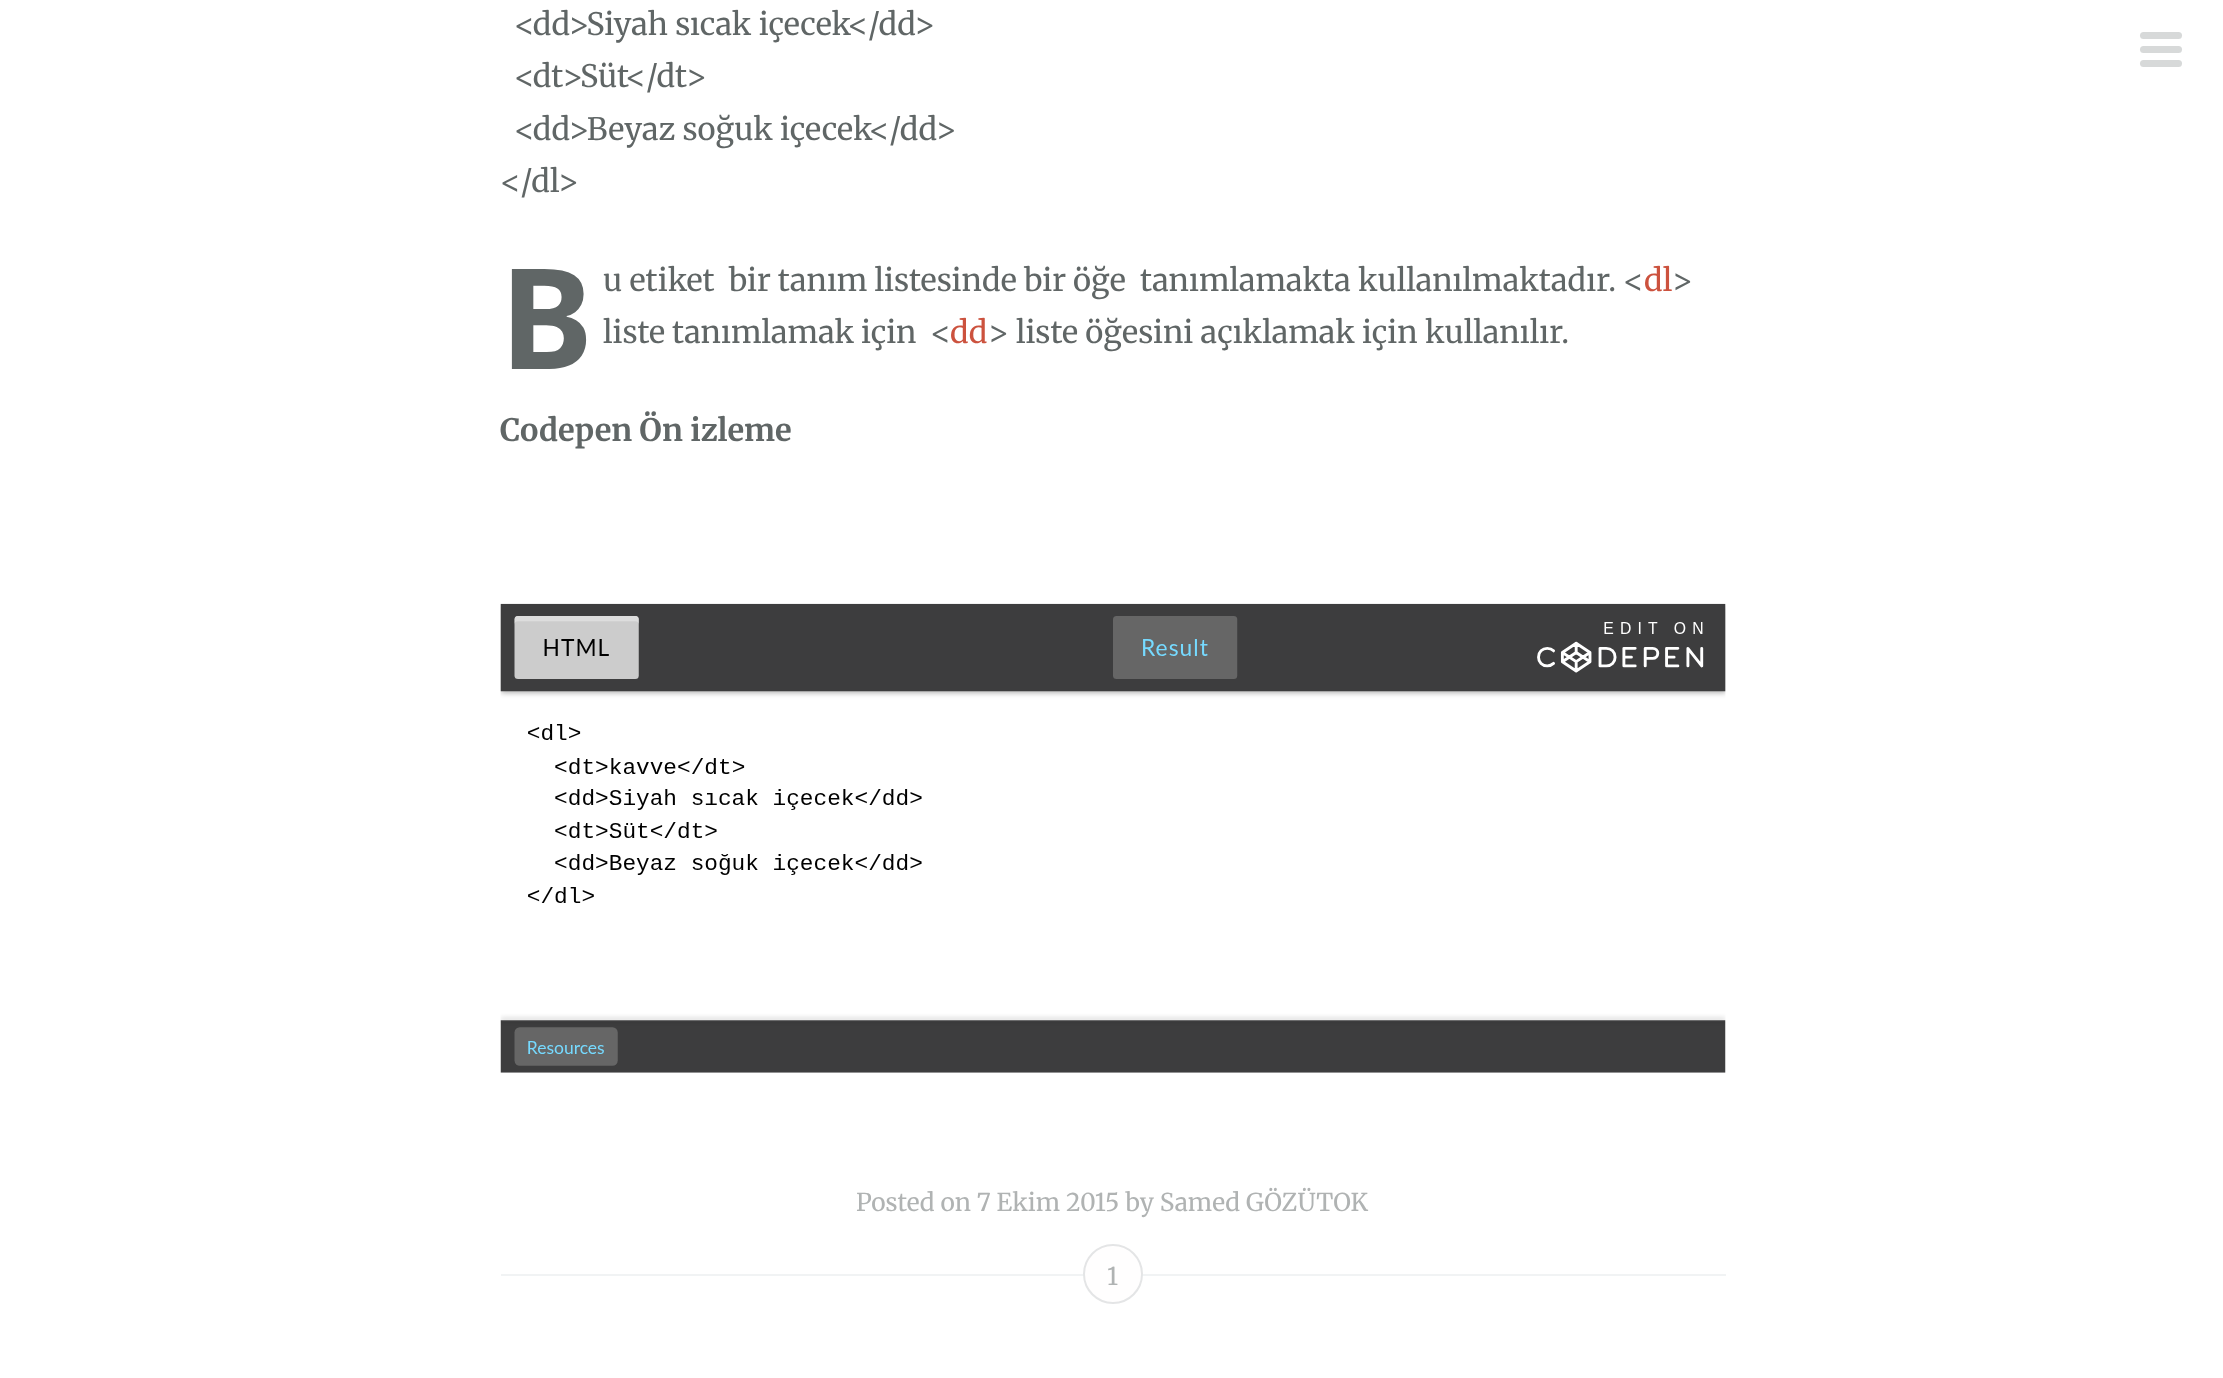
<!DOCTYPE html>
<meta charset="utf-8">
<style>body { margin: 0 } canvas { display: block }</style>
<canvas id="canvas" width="2223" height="1378"></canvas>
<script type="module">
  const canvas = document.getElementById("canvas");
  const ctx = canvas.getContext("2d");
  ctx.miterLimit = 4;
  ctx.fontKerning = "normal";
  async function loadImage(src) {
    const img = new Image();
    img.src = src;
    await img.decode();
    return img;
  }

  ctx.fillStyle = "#ffffff";
  ctx.fillRect(0, 0, 2223, 1378);
  ctx.font = "30.8px Merriweather";
  ctx.fillStyle = "#606666";
  ctx.fillText("<dd>Siyah sıcak içecek<\/dd>", 514, 35);
  ctx.fillText("<dt>Süt<\/dt>", 514, 87);
  ctx.fillText("<dd>Beyaz soğuk içecek<\/dd>", 514, 140);
  ctx.fillText("<\/dl>", 500, 192);
  ctx.font = "bold 140px Noto Sans";
  ctx.fillText("B", 500, 369);
  ctx.wordSpacing = "-0.25px";
  ctx.font = "30.8px Merriweather";
  ctx.fillText("u etiket  bir tanım listesinde bir öğe  tanımlamakta kullanılmaktadır. <", 603, 291);
  ctx.wordSpacing = "0px";
  ctx.fillStyle = "#cc523e";
  ctx.fillText("dl", 1644, 291);
  ctx.fillStyle = "#606666";
  ctx.fillText(">", 1672, 291);
  ctx.wordSpacing = "-0.5px";
  ctx.fillText("liste tanımlamak için  <", 603, 343);
  ctx.wordSpacing = "0px";
  ctx.fillStyle = "#cc523e";
  ctx.fillText("dd", 950, 343);
  ctx.fillStyle = "#606666";
  ctx.fillText("> liste öğesini açıklamak için kullanılır.", 988, 343);
  ctx.font = "bold 30.8px Merriweather";
  ctx.fillText("Codepen Ön izleme", 500, 441);
  ctx.drawImage(await loadImage("img1.png"), 500, 603, 1226, 470);
  ctx.font = "24.5px Merriweather";
  ctx.fillStyle = "#b0b3b3";
  ctx.fillText("Posted on 7 Ekim 2015 by Samed GÖZÜTOK", 856, 1211);
  ctx.fillStyle = "#f1f3f4";
  ctx.fillRect(501, 1274, 1225, 2);
  ctx.fillStyle = "#fffefe";
  ctx.beginPath();
  ctx.arc(1113, 1274, 29, 0, Math.PI * 2);
  ctx.fill();
  ctx.strokeStyle = "#e4e5e6";
  ctx.lineWidth = 2;
  ctx.stroke();
  ctx.fillStyle = "#b0b3b3";
  ctx.fillText("1", 1107, 1285);
  ctx.fillStyle = "#d7d9d9";
  ctx.beginPath();
  ctx.roundRect(2140, 46, 42, 7, 3.5);
  ctx.fill();
  ctx.beginPath();
  ctx.roundRect(2140, 32, 42, 7, 3.5);
  ctx.fill();
  ctx.beginPath();
  ctx.roundRect(2140, 60, 42, 7, 3.5);
  ctx.fill();
</script>
